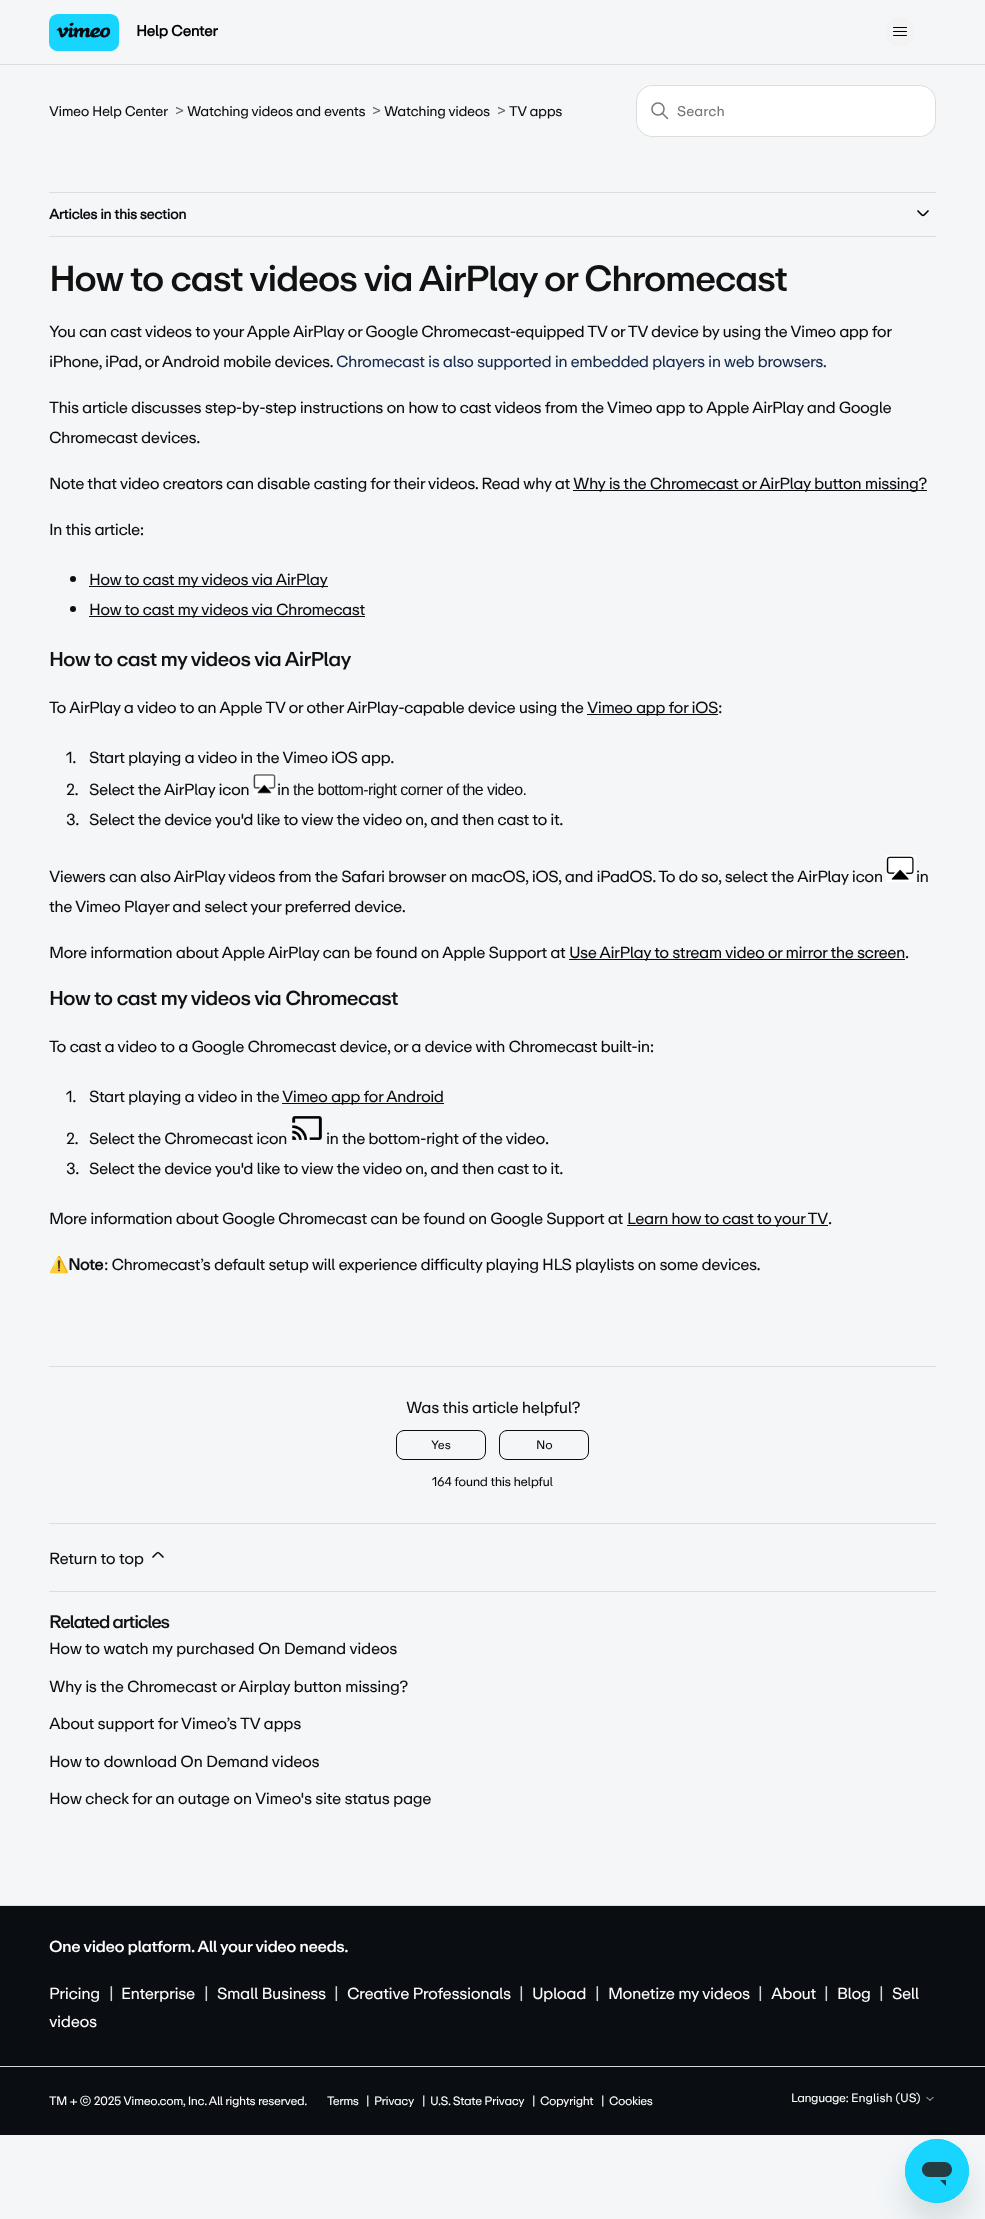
<!DOCTYPE html>
<meta charset="utf-8">
<style>body { margin: 0 } canvas { display: block }</style>
<canvas id="canvas" width="985" height="2219"></canvas>
<script type="module">
  const canvas = document.getElementById("canvas");
  const ctx = canvas.getContext("2d");
  ctx.miterLimit = 4;
  ctx.fontKerning = "normal";
  async function loadImage(src) {
    const img = new Image();
    img.src = src;
    await img.decode();
    return img;
  }

  ctx.fillStyle = "#f4f6f8";
  ctx.fillRect(0, 0, 985, 2219);
  ctx.drawImage(await loadImage("img1.png"), 49, 14, 70, 37);
  ctx.letterSpacing = "-0.42px";
  ctx.font = "bold 15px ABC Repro";
  ctx.fillStyle = "#000000";
  ctx.fillText("Help Center", 136, 36);
  ctx.fillStyle = "#f3f3f3";
  ctx.beginPath();
  ctx.arc(900, 32, 15, 0, Math.PI * 2);
  ctx.fill();
  ctx.beginPath();
  ctx.moveTo(893.5, 27.5);
  ctx.lineTo(906.5, 27.5);
  ctx.moveTo(893.5, 31.5);
  ctx.lineTo(906.5, 31.5);
  ctx.moveTo(893.5, 35.5);
  ctx.lineTo(906.5, 35.5);
  ctx.strokeStyle = "#000000";
  ctx.lineCap = "round";
  ctx.stroke();
  ctx.fillStyle = "#dddddd";
  ctx.fillRect(0, 64, 985, 1);
  ctx.font = "14px ABC Repro";
  ctx.fillStyle = "#0a0e12";
  ctx.fillText("Vimeo Help Center", 49, 116);
  ctx.fillStyle = "#626c76";
  ctx.fillText(">", 175, 114);
  ctx.fillStyle = "#0a0e12";
  ctx.fillText("Watching videos and events", 187, 116);
  ctx.fillStyle = "#626c76";
  ctx.fillText(">", 372, 114);
  ctx.fillStyle = "#0a0e12";
  ctx.fillText("Watching videos", 384, 116);
  ctx.fillStyle = "#626c76";
  ctx.fillText(">", 497, 114);
  ctx.fillStyle = "#0a0e12";
  ctx.fillText("TV apps", 509, 116);
  ctx.beginPath();
  ctx.roundRect(636.5, 85.5, 299, 51, 15.5);
  ctx.strokeStyle = "#dddddd";
  ctx.stroke();
  ctx.fillStyle = "#ffffff";
  ctx.beginPath();
  ctx.roundRect(637, 86, 298, 50, 16);
  ctx.fill();
  ctx.drawImage(await loadImage("img2.png"), 651, 102, 18, 18);
  ctx.letterSpacing = "0px";
  ctx.fillStyle = "#757575";
  ctx.fillText("Search", 677, 116);
  ctx.fillStyle = "#dddddd";
  ctx.fillRect(49, 192, 887, 1);
  ctx.fillRect(49, 236, 887, 1);
  ctx.letterSpacing = "-0.42px";
  ctx.font = "bold 14px ABC Repro";
  ctx.fillStyle = "#0a0e12";
  ctx.fillText("Articles in this section", 49, 219);
  ctx.beginPath();
  ctx.moveTo(918, 211);
  ctx.bezierCurveTo(924, 217, 922, 217, 928, 211);
  ctx.strokeStyle = "#000000";
  ctx.lineWidth = 1.7;
  ctx.stroke();
  ctx.letterSpacing = "-1.45px";
  ctx.font = "500 36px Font";
  ctx.fillStyle = "#121212";
  ctx.fillText("How to cast videos via AirPlay or Chromecast", 49, 291);
  ctx.letterSpacing = "-0.54px";
  ctx.font = "16px ABC Repro";
  ctx.fillStyle = "#0a0e12";
  ctx.fillText("You can cast videos to your Apple AirPlay or Google Chromecast-equipped TV or TV device by using the Vimeo app for", 49, 337);
  ctx.fillText("iPhone, iPad, or Android mobile devices.", 49, 367);
  ctx.fillStyle = "#172b4d";
  ctx.fillText("Chromecast is also supported in embedded players in web browsers.", 336, 367);
  ctx.fillStyle = "#0a0e12";
  ctx.fillText("This article discusses step-by-step instructions on how to cast videos from the Vimeo app to Apple AirPlay and Google", 49, 413);
  ctx.fillText("Chromecast devices.", 49, 443);
  ctx.fillText("Note that video creators can disable casting for their videos. Read why at", 49, 489);
  ctx.fillRect(573, 490, 354, 1);
  ctx.fillText("Why is the Chromecast or AirPlay button missing?", 573, 489);
  ctx.fillText("In this article:", 49, 535);
  ctx.beginPath();
  ctx.arc(73, 579, 3, 0, Math.PI * 2);
  ctx.fill();
  ctx.fillRect(89, 586, 239, 1);
  ctx.fillText("How to cast my videos via AirPlay", 89, 585);
  ctx.beginPath();
  ctx.arc(73, 609, 3, 0, Math.PI * 2);
  ctx.fill();
  ctx.fillRect(89, 616, 276, 1);
  ctx.fillText("How to cast my videos via Chromecast", 89, 615);
  ctx.letterSpacing = "-0.8px";
  ctx.font = "500 20px Font";
  ctx.fillStyle = "#121212";
  ctx.fillText("How to cast my videos via AirPlay", 49, 666);
  ctx.letterSpacing = "-0.54px";
  ctx.font = "16px ABC Repro";
  ctx.fillStyle = "#0a0e12";
  ctx.fillText("To AirPlay a video to an Apple TV or other AirPlay-capable device using the", 49, 713);
  ctx.fillRect(587, 714, 131, 1);
  ctx.fillText("Vimeo app for iOS:", 587, 713);
  ctx.fillText("1.", 66, 763);
  ctx.fillText("Start playing a video in the Vimeo iOS app.", 89, 763);
  ctx.fillText("2.", 66, 795);
  ctx.fillText("Select the AirPlay icon", 89, 795);
  ctx.drawImage(await loadImage("img3.png"), 253, 773, 24, 22);
  ctx.fillText("in", 277, 795);
  ctx.font = "16px Liberation Sans";
  ctx.fillText("the bottom-right corner of the video.", 293, 795);
  ctx.font = "16px ABC Repro";
  ctx.fillText("3.", 66, 825);
  ctx.fillText("Select the device you'd like to view the video on, and then cast to it.", 89, 825);
  ctx.fillText("Viewers can also AirPlay videos from the Safari browser on macOS, iOS, and iPadOS. To do so, select the AirPlay icon", 49, 882);
  ctx.drawImage(await loadImage("img4.png"), 886, 855, 30, 27);
  ctx.fillText("in", 916, 882);
  ctx.fillText("the Vimeo Player and select your preferred device.", 49, 912);
  ctx.fillText("More information about Apple AirPlay can be found on Apple Support at", 49, 958);
  ctx.fillRect(569, 959, 336, 1);
  ctx.fillText("Use AirPlay to stream video or mirror the screen.", 569, 958);
  ctx.letterSpacing = "-0.8px";
  ctx.font = "500 20px Font";
  ctx.fillStyle = "#121212";
  ctx.fillText("How to cast my videos via Chromecast", 49, 1005);
  ctx.letterSpacing = "-0.54px";
  ctx.font = "16px ABC Repro";
  ctx.fillStyle = "#0a0e12";
  ctx.fillText("To cast a video to a Google Chromecast device, or a device with Chromecast built-in:", 49, 1052);
  ctx.fillText("1.", 66, 1102);
  ctx.fillText("Start playing a video in the", 89, 1102);
  ctx.fillRect(282, 1103, 162, 1);
  ctx.fillText("Vimeo app for Android", 282, 1102);
  ctx.fillText("2.", 66, 1144);
  ctx.fillText("Select the Chromecast icon", 89, 1144);
  ctx.drawImage(await loadImage("img5.png"), 292, 1116, 30, 24);
  ctx.fillText("in the bottom-right of the video.", 326, 1144);
  ctx.fillText("3.", 66, 1174);
  ctx.fillText("Select the device you'd like to view the video on, and then cast to it.", 89, 1174);
  ctx.fillText("More information about Google Chromecast can be found on Google Support at", 49, 1224);
  ctx.fillRect(627, 1225, 201, 1);
  ctx.wordSpacing = "-0.25px";
  ctx.fillText("Learn how to cast to your TV", 627, 1224);
  ctx.wordSpacing = "0px";
  ctx.fillText(".", 828, 1224);
  ctx.font = "bold 16px Noto Color Emoji";
  ctx.fillText("⚠️", 49, 1270);
  ctx.font = "bold 16px ABC Repro";
  ctx.fillText("Note", 68, 1270);
  ctx.font = "16px ABC Repro";
  ctx.fillText(": Chromecast’s default setup will experience difficulty playing HLS playlists on some devices.", 104, 1270);
  ctx.fillStyle = "#dddddd";
  ctx.fillRect(49, 1366, 887, 1);
  ctx.letterSpacing = "-0.42px";
  ctx.fillStyle = "#0a0e12";
  ctx.fillText("Was this article helpful?", 406, 1413);
  ctx.beginPath();
  ctx.roundRect(396.5, 1430.5, 89, 29, 7.5);
  ctx.strokeStyle = "#0a0e12";
  ctx.lineWidth = 1;
  ctx.stroke();
  ctx.letterSpacing = "0px";
  ctx.font = "12px ABC Repro";
  ctx.fillText("Yes", 431, 1449);
  ctx.beginPath();
  ctx.roundRect(499.5, 1430.5, 89, 29, 7.5);
  ctx.stroke();
  ctx.fillText("No", 536, 1449);
  ctx.letterSpacing = "-0.42px";
  ctx.font = "12.75px ABC Repro";
  ctx.fillText("164 found this helpful", 432, 1486);
  ctx.fillStyle = "#dddddd";
  ctx.fillRect(49, 1523, 887, 1);
  ctx.font = "16px ABC Repro";
  ctx.fillStyle = "#0a0e12";
  ctx.fillText("Return to top", 49, 1564);
  ctx.beginPath();
  ctx.moveTo(163, 1557);
  ctx.bezierCurveTo(157, 1551, 159, 1551, 153, 1557);
  ctx.lineWidth = 1.7;
  ctx.stroke();
  ctx.fillStyle = "#dddddd";
  ctx.fillRect(49, 1591, 887, 1);
  ctx.letterSpacing = "-1.25px";
  ctx.font = "500 18px Font";
  ctx.fillStyle = "#121212";
  ctx.fillText("Related articles", 49, 1628);
  ctx.letterSpacing = "-0.42px";
  ctx.font = "16px ABC Repro";
  ctx.fillStyle = "#0a0e12";
  ctx.fillText("How to watch my purchased On Demand videos", 49, 1654);
  ctx.fillText("Why is the Chromecast or Airplay button missing?", 49, 1692);
  ctx.fillText("About support for Vimeo’s TV apps", 49, 1729);
  ctx.fillText("How to download On Demand videos", 49, 1767);
  ctx.fillText("How check for an outage on Vimeo's site status page", 49, 1804);
  ctx.fillRect(0, 1906, 985, 229);
  ctx.fillStyle = "#dddddd";
  ctx.fillRect(0, 1905, 985, 1);
  ctx.letterSpacing = "-0.5px";
  ctx.font = "500 16px Font";
  ctx.fillStyle = "#ffffff";
  ctx.fillText("One video platform. All your video needs.", 49, 1952);
  ctx.letterSpacing = "-0.42px";
  ctx.font = "16px ABC Repro";
  ctx.fillText("Pricing", 49, 1999);
  ctx.fillStyle = "#d0d8db";
  ctx.fillText("|", 109, 1999);
  ctx.fillStyle = "#ffffff";
  ctx.fillText("Enterprise", 121, 1999);
  ctx.fillStyle = "#d0d8db";
  ctx.fillText("|", 204, 1999);
  ctx.fillStyle = "#ffffff";
  ctx.fillText("Small Business", 217, 1999);
  ctx.fillStyle = "#d0d8db";
  ctx.fillText("|", 334, 1999);
  ctx.fillStyle = "#ffffff";
  ctx.fillText("Creative Professionals", 347, 1999);
  ctx.fillStyle = "#d0d8db";
  ctx.fillText("|", 519, 1999);
  ctx.fillStyle = "#ffffff";
  ctx.fillText("Upload", 532, 1999);
  ctx.fillStyle = "#d0d8db";
  ctx.fillText("|", 595, 1999);
  ctx.fillStyle = "#ffffff";
  ctx.fillText("Monetize my videos", 608, 1999);
  ctx.fillStyle = "#d0d8db";
  ctx.fillText("|", 758, 1999);
  ctx.fillStyle = "#ffffff";
  ctx.fillText("About", 771, 1999);
  ctx.fillStyle = "#d0d8db";
  ctx.fillText("|", 824, 1999);
  ctx.fillStyle = "#ffffff";
  ctx.fillText("Blog", 837, 1999);
  ctx.fillStyle = "#d0d8db";
  ctx.fillText("|", 879, 1999);
  ctx.fillStyle = "#ffffff";
  ctx.fillText("Sell", 892, 1999);
  ctx.fillText("videos", 49, 2027);
  ctx.fillStyle = "#d0d8db";
  ctx.fillRect(0, 2066, 985, 1);
  ctx.font = "12px ABC Repro";
  ctx.fillStyle = "#ffffff";
  ctx.fillText("TM + © 2025 Vimeo.com, Inc. All rights reserved.", 49, 2105);
  ctx.fillText("Terms", 327, 2105);
  ctx.fillText("|", 366, 2105);
  ctx.fillText("Privacy", 374, 2105);
  ctx.fillText("|", 422, 2105);
  ctx.fillText("U.S. State Privacy", 430, 2105);
  ctx.fillText("|", 532, 2105);
  ctx.fillText("Copyright", 540, 2105);
  ctx.fillText("|", 601, 2105);
  ctx.fillText("Cookies", 609, 2105);
  ctx.fillText("Language:", 791, 2102);
  ctx.letterSpacing = "0px";
  ctx.fillText("English (US)", 851, 2102);
  ctx.beginPath();
  ctx.moveTo(927, 2097.5);
  ctx.bezierCurveTo(930.5, 2101, 929.5, 2101, 933, 2097.5);
  ctx.strokeStyle = "#ffffff";
  ctx.lineWidth = 1;
  ctx.stroke();
  ctx.fillStyle = "rgba(23, 73, 77, 0.15)";
  ctx.filter = "blur(15px)";
  ctx.beginPath();
  ctx.roundRect(905, 2159, 64, 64, 32);
  ctx.fill();
  ctx.filter = "none";
  ctx.drawImage(await loadImage("img6.png"), 905, 2139, 64, 64);
</script>
